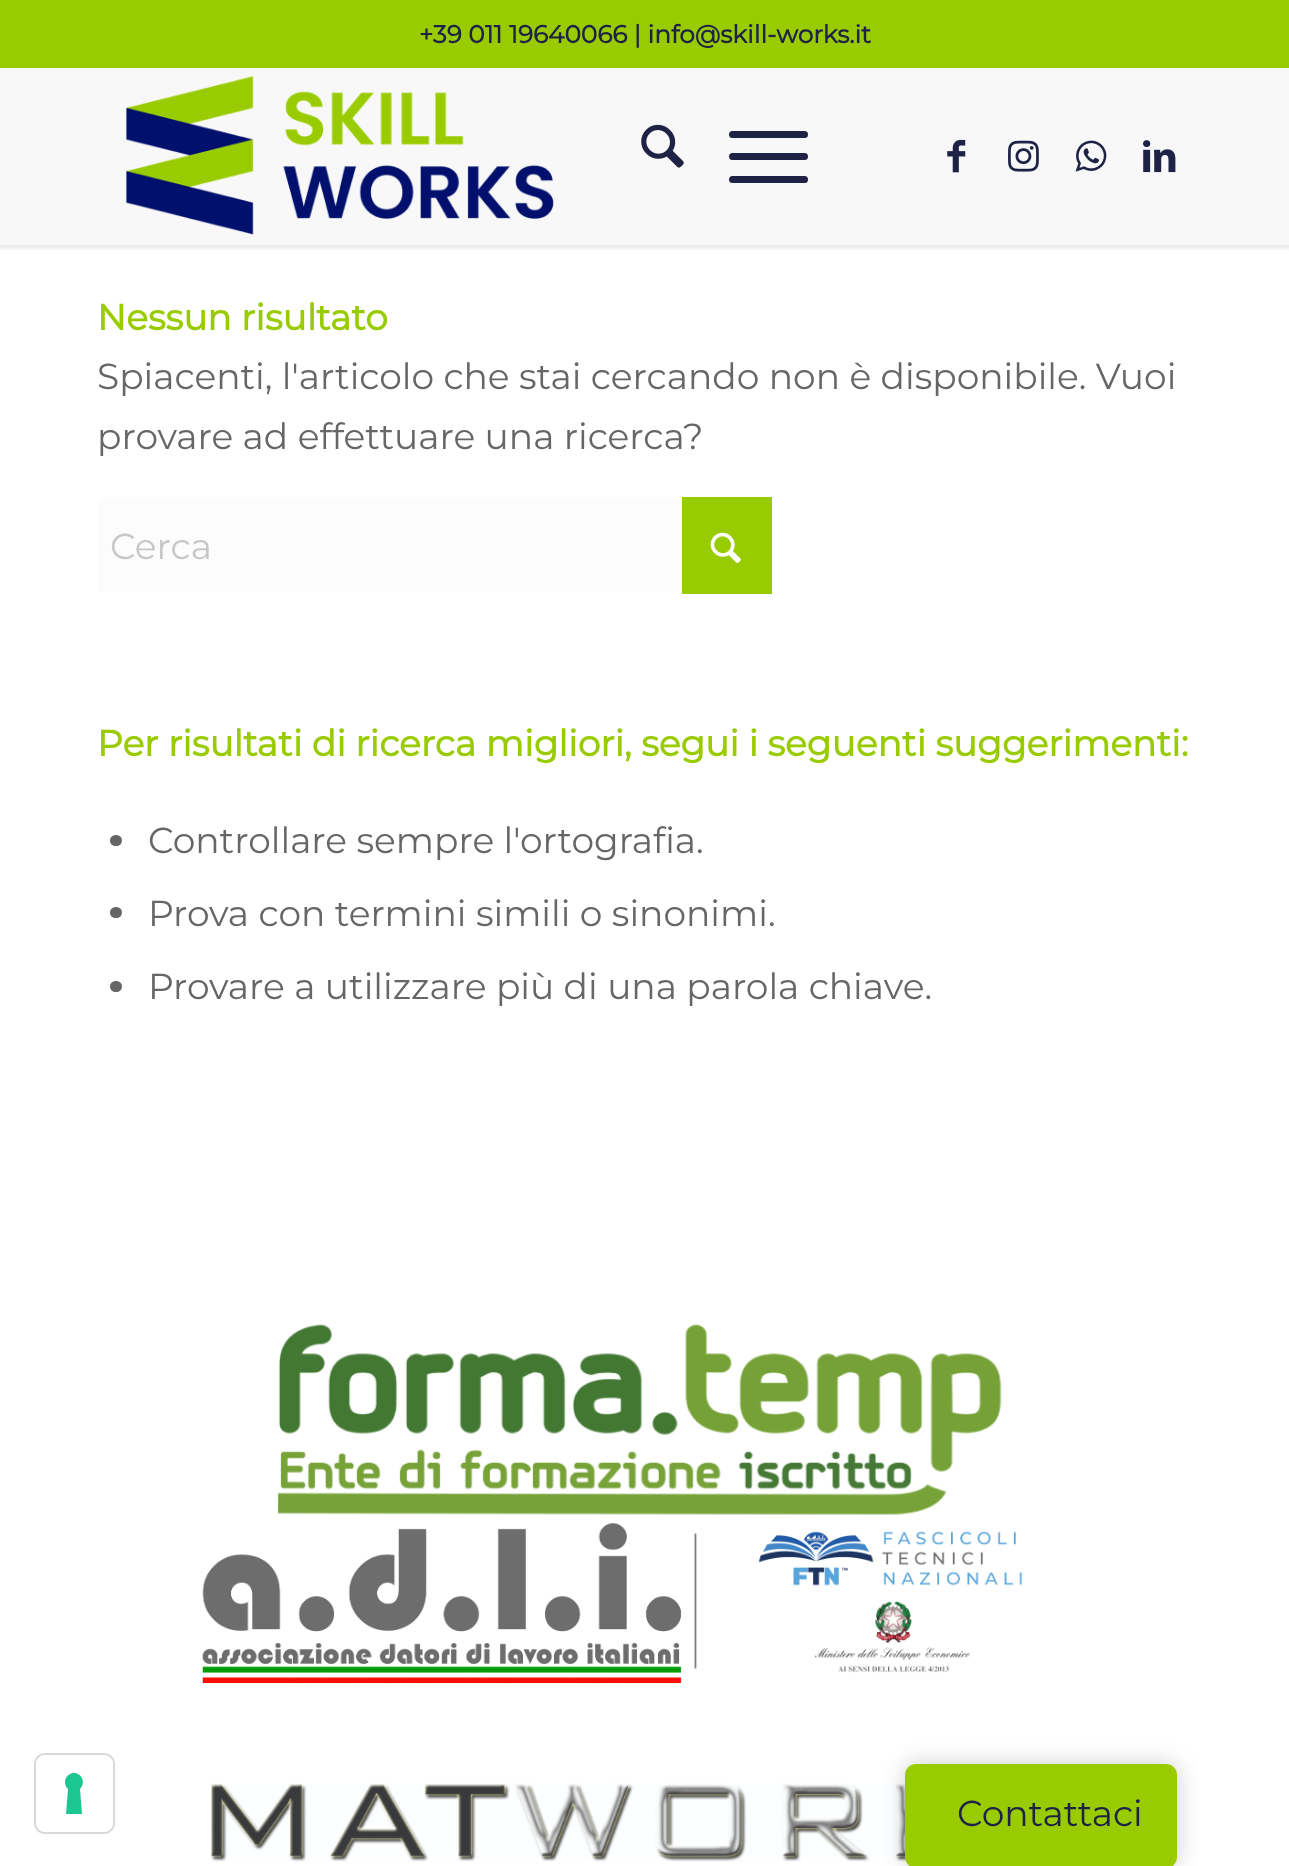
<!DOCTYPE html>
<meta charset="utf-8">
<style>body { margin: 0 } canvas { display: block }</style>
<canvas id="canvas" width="1289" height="1866"></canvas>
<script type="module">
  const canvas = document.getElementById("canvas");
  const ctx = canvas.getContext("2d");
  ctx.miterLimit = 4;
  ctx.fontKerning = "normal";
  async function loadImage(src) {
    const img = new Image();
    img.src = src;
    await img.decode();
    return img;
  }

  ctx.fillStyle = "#ffffff";
  ctx.fillRect(0, 0, 1289, 1866);
  ctx.fillStyle = "rgba(0, 0, 0, 0.1)";
  ctx.filter = "blur(2px)";
  ctx.beginPath();
  ctx.rect(-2, -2, 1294, 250);
  ctx.fill();
  ctx.filter = "none";
  ctx.fillStyle = "#99cc00";
  ctx.fillRect(0, 0, 1289, 68);
  ctx.font = "bold 24.75px Montserrat";
  ctx.fillStyle = "#1e2245";
  ctx.fillText("+39 011 19640066 | info@skill-works.it", 419, 43);
  ctx.fillStyle = "#f8f8f8";
  ctx.fillRect(0, 68, 1289, 177);
  ctx.drawImage(await loadImage("img1.png"), 126, 75, 428, 160);
  ctx.drawImage(await loadImage("img2.png"), 641, 124, 43, 44);
  ctx.fillStyle = "#1e2245";
  ctx.beginPath();
  ctx.roundRect(729, 153, 79, 7, 3.5);
  ctx.fill();
  ctx.beginPath();
  ctx.roundRect(729, 131, 79, 7, 3.5);
  ctx.fill();
  ctx.beginPath();
  ctx.roundRect(729, 176, 79, 7, 3.5);
  ctx.fill();
  ctx.drawImage(await loadImage("img3.png"), 947, 139, 19, 34);
  ctx.drawImage(await loadImage("img4.png"), 1008, 140, 31, 32);
  ctx.drawImage(await loadImage("img5.png"), 1075, 140, 32, 32);
  ctx.drawImage(await loadImage("img6.png"), 1143, 140, 33, 33);
  ctx.font = "bold 36px Montserrat";
  ctx.fillStyle = "#99cc00";
  ctx.fillText("Nessun risultato", 97, 330);
  ctx.font = "100 36px Montserrat";
  ctx.fillStyle = "#666666";
  ctx.fillText("Spiacenti, l'articolo che stai cercando non è disponibile. Vuoi", 97, 389);
  ctx.fillText("provare ad effettuare una ricerca?", 97, 449);
  ctx.fillStyle = "#99cc00";
  ctx.fillRect(682, 497, 90, 97);
  ctx.fillStyle = "#fcfcfc";
  ctx.fillRect(99, 499, 583, 93);
  ctx.fillStyle = "#c7c7c7";
  ctx.fillText("Cerca", 110, 559);
  ctx.drawImage(await loadImage("img7.png"), 710, 532, 31, 31);
  ctx.font = "bold 36px Montserrat";
  ctx.fillStyle = "#99cc00";
  ctx.fillText("Per risultati di ricerca migliori, segui i seguenti suggerimenti:", 97, 756);
  ctx.fillStyle = "#666666";
  ctx.beginPath();
  ctx.roundRect(110, 835, 12, 11, 5.5);
  ctx.fill();
  ctx.font = "100 36px Montserrat";
  ctx.fillText("Controllare sempre l'ortografia.", 148, 853);
  ctx.beginPath();
  ctx.roundRect(110, 907, 12, 11, 5.5);
  ctx.fill();
  ctx.fillText("Prova con termini simili o sinonimi.", 148, 926);
  ctx.beginPath();
  ctx.roundRect(110, 981, 12, 11, 5.5);
  ctx.fill();
  ctx.fillText("Provare a utilizzare più di una parola chiave.", 148, 999);
  ctx.drawImage(await loadImage("img8.png"), 277, 1324, 725, 191);
  ctx.drawImage(await loadImage("img9.png"), 202, 1523, 821, 160);
  ctx.drawImage(await loadImage("img10.png"), 210, 1783, 697, 79);
  ctx.beginPath();
  ctx.roundRect(35, 1754, 79, 79, 10);
  ctx.strokeStyle = "#d9d9d9";
  ctx.lineWidth = 2;
  ctx.stroke();
  ctx.fillStyle = "#ffffff";
  ctx.beginPath();
  ctx.roundRect(36, 1755, 77, 77, 9);
  ctx.fill();
  ctx.fillStyle = "#1cc691";
  ctx.beginPath();
  ctx.moveTo(74, 1773);
  ctx.bezierCurveTo(82, 1773, 86, 1783, 80, 1789);
  ctx.lineTo(82, 1814);
  ctx.lineTo(66, 1814);
  ctx.lineTo(68, 1789);
  ctx.bezierCurveTo(62, 1783, 66, 1773, 74, 1773);
  ctx.closePath();
  ctx.fill("evenodd");
  ctx.fillStyle = "rgba(0, 0, 0, 0.2)";
  ctx.filter = "blur(11px)";
  ctx.beginPath();
  ctx.roundRect(905, 1764, 272, 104, 11);
  ctx.fill();
  ctx.filter = "none";
  ctx.fillStyle = "#99cc00";
  ctx.beginPath();
  ctx.roundRect(905, 1764, 272, 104, 11);
  ctx.fill();
  ctx.fillStyle = "#1e2245";
  ctx.fillText("Contattaci", 957, 1826);
</script>
